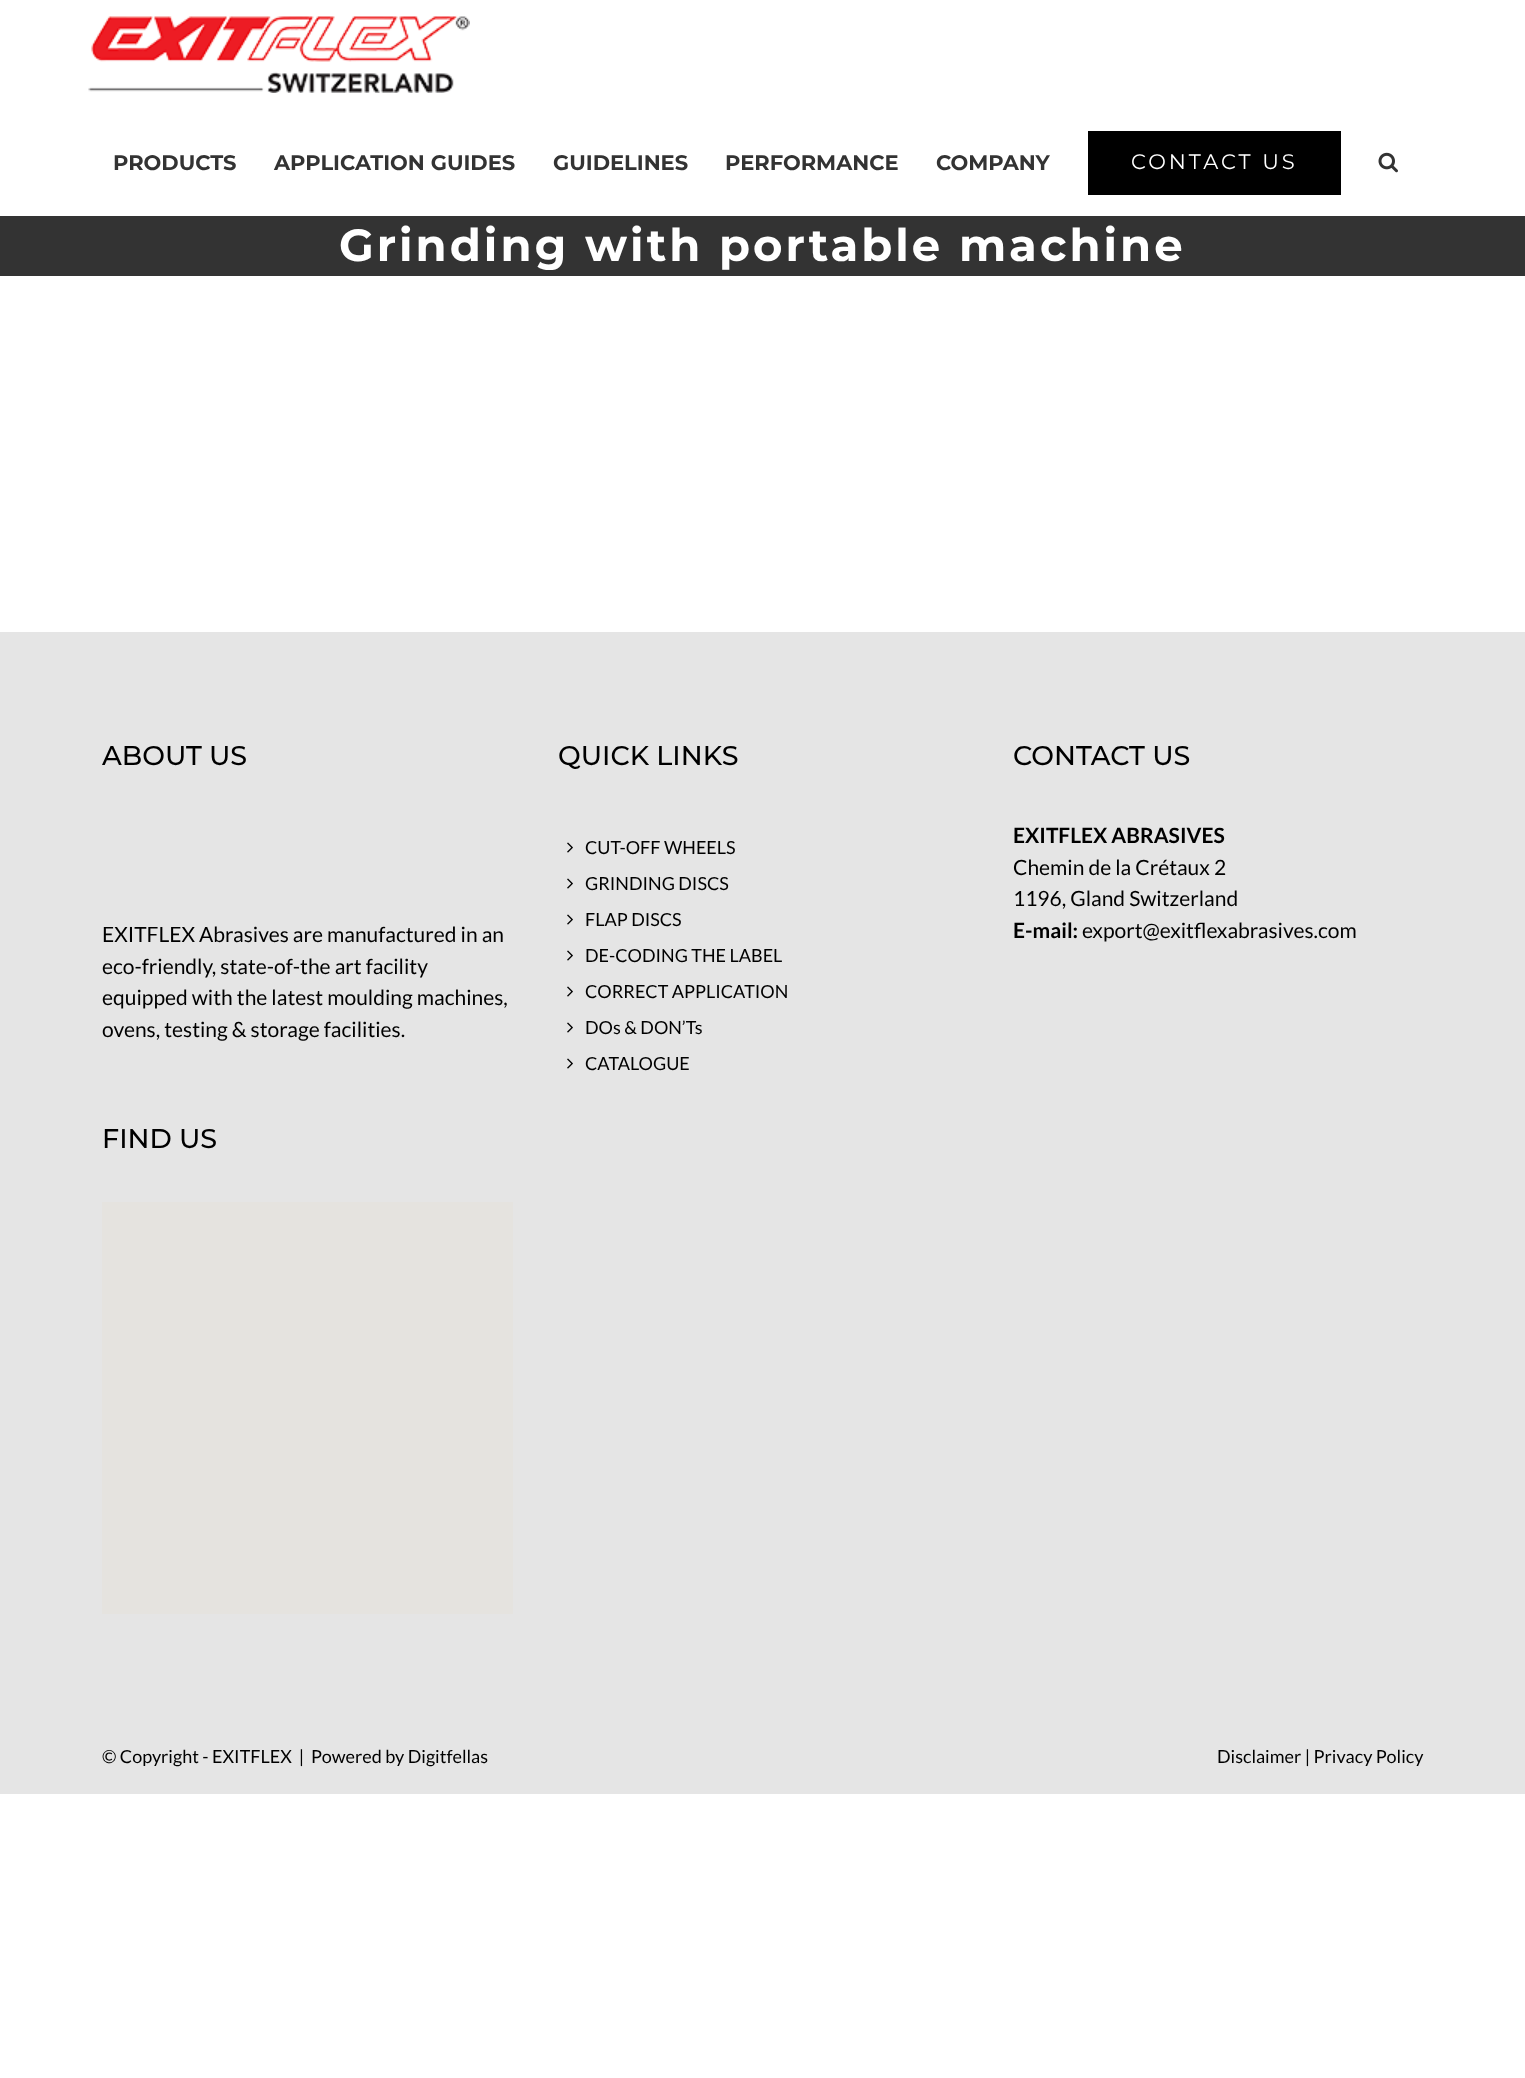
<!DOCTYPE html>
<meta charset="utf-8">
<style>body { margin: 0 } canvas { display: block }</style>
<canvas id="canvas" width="1525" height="2078"></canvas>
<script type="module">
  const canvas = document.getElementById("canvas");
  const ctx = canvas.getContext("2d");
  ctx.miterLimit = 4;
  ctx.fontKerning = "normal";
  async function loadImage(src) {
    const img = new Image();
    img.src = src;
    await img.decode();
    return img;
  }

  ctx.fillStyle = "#ffffff";
  ctx.fillRect(0, 0, 1525, 2078);
  ctx.drawImage(await loadImage("img1.png"), 88, 15, 382, 78);
  ctx.font = "100 21px Montserrat";
  ctx.fillStyle = "#333333";
  ctx.fillText("PRODUCTS", 113, 170);
  ctx.fillText("APPLICATION GUIDES", 274, 170);
  ctx.fillText("GUIDELINES", 553, 170);
  ctx.fillText("PERFORMANCE", 725, 170);
  ctx.fillText("COMPANY", 936, 170);
  ctx.fillStyle = "#000000";
  ctx.fillRect(1088, 131, 253, 64);
  ctx.letterSpacing = "3px";
  ctx.font = "100 21px 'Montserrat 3'";
  ctx.fillStyle = "#ffffff";
  ctx.fillText("CONTACT US", 1131, 169);
  ctx.drawImage(await loadImage("img2.png"), 1378, 152, 20, 21);
  ctx.fillStyle = "#333333";
  ctx.fillRect(0, 216, 1525, 60);
  ctx.font = "100 45px Montserrat";
  ctx.fillStyle = "#ffffff";
  ctx.fillText("Grinding with portable machine", 339, 261);
  ctx.fillStyle = "#e5e5e5";
  ctx.fillRect(0, 632, 1525, 1162);
  ctx.letterSpacing = "0px";
  ctx.font = "100 27px 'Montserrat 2'";
  ctx.fillStyle = "#000000";
  ctx.fillText("ABOUT US", 102, 765);
  ctx.font = "21px Lato";
  ctx.fillText("EXITFLEX Abrasives are manufactured in an", 102, 942);
  ctx.fillText("eco-friendly, state-of-the art facility", 102, 974);
  ctx.fillText("equipped with the latest moulding machines,", 102, 1005);
  ctx.fillText("ovens, testing & storage facilities.", 102, 1037);
  ctx.font = "100 27px 'Montserrat 2'";
  ctx.fillText("FIND US", 102, 1148);
  ctx.fillStyle = "#e5e3df";
  ctx.fillRect(102, 1202, 411, 412);
  ctx.fillStyle = "#000000";
  ctx.fillText("QUICK LINKS", 558, 765);
  ctx.drawImage(await loadImage("img3.png"), 567, 842, 6, 11);
  ctx.font = "18px Lato";
  ctx.fillText("CUT-OFF WHEELS", 585, 854);
  ctx.drawImage(await loadImage("img3.png"), 567, 878, 6, 11);
  ctx.fillText("GRINDING DISCS", 585, 890);
  ctx.drawImage(await loadImage("img3.png"), 567, 914, 6, 11);
  ctx.fillText("FLAP DISCS", 585, 926);
  ctx.drawImage(await loadImage("img3.png"), 567, 950, 6, 11);
  ctx.fillText("DE-CODING THE LABEL", 585, 962);
  ctx.drawImage(await loadImage("img3.png"), 567, 986, 6, 11);
  ctx.fillText("CORRECT APPLICATION", 585, 998);
  ctx.drawImage(await loadImage("img3.png"), 567, 1022, 6, 11);
  ctx.fillText("DOs & DON’Ts", 585, 1034);
  ctx.drawImage(await loadImage("img3.png"), 567, 1058, 6, 11);
  ctx.fillText("CATALOGUE", 585, 1070);
  ctx.font = "100 27px 'Montserrat 2'";
  ctx.fillText("CONTACT US", 1013, 765);
  ctx.font = "bold 21px Lato";
  ctx.fillText("EXITFLEX ABRASIVES", 1013, 843);
  ctx.font = "21px Lato";
  ctx.fillText("Chemin de la Crétaux 2", 1013, 875);
  ctx.fillText("1196, Gland Switzerland", 1013, 906);
  ctx.font = "bold 21px Lato";
  ctx.fillText("E-mail:", 1013, 938);
  ctx.font = "21px Lato";
  ctx.fillText("export@exitflexabrasives.com", 1082, 938);
  ctx.font = "18px Lato";
  ctx.fillText("© Copyright - EXITFLEX  |  Powered by Digitfellas", 102, 1763);
  ctx.fillText("Disclaimer | Privacy Policy", 1217, 1763);
</script>
